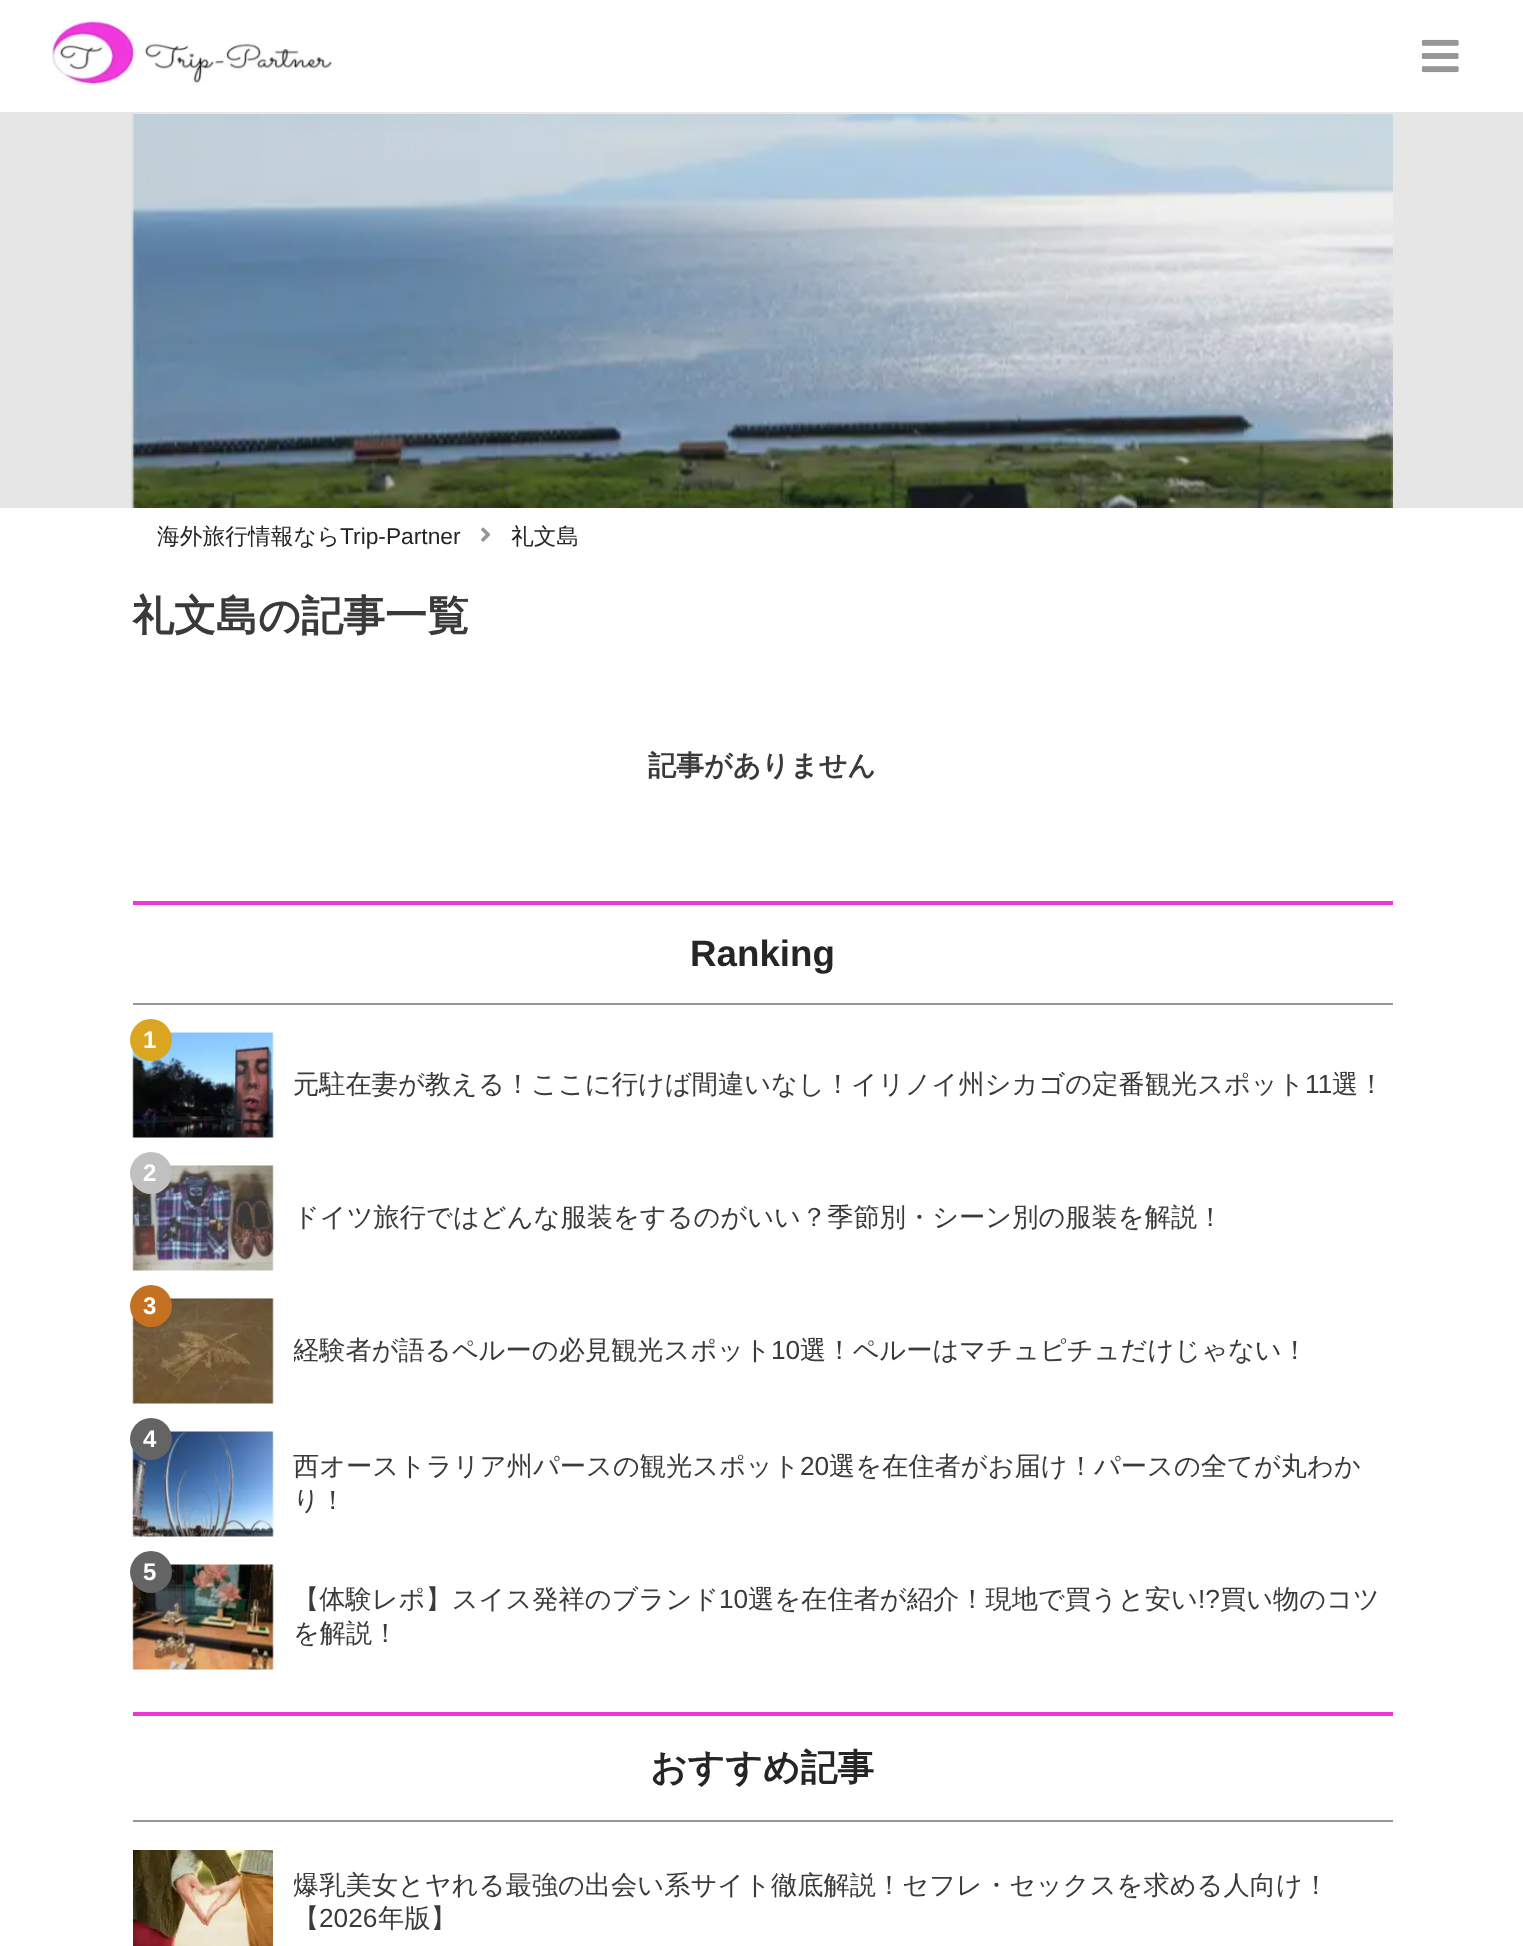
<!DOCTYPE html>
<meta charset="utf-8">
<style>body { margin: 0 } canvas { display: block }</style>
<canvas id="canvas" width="1523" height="1946"></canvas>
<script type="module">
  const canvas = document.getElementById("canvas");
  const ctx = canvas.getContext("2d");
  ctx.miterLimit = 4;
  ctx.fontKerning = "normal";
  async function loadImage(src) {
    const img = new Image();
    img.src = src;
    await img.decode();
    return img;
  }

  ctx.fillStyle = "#ffffff";
  ctx.fillRect(0, 0, 1523, 1946);
  ctx.drawImage(await loadImage("img1.png"), 49, 20, 283, 65);
  ctx.drawImage(await loadImage("img2.png"), 1421, 39, 38, 34);
  ctx.fillStyle = "#e6e6e6";
  ctx.fillRect(0, 112, 1523, 396);
  ctx.drawImage(await loadImage("img3.png"), 131, 114, 1262, 394);
  ctx.font = "500 22.75px WenQuanYi Zen Hei";
  ctx.fillStyle = "#252525";
  ctx.fillText("海外旅行情報なら", 157, 544);
  ctx.font = "22.75px Liberation Sans";
  ctx.fillText("Trip-Partner", 340, 544);
  ctx.drawImage(await loadImage("img4.png"), 481, 527, 10, 15);
  ctx.font = "500 22.75px WenQuanYi Zen Hei";
  ctx.fillText("礼文島", 511, 544);
  ctx.font = "bold 42px WenQuanYi Zen Hei";
  ctx.fillStyle = "#3a3a3a";
  ctx.fillText("礼文島の記事一覧", 132, 630);
  ctx.font = "bold 28px WenQuanYi Zen Hei";
  ctx.fillText("記事がありません", 648, 775);
  ctx.fillStyle = "#ef37d7";
  ctx.fillRect(133, 901, 1260, 4);
  ctx.fillStyle = "#969696";
  ctx.fillRect(133, 1003, 1260, 2);
  ctx.font = "bold 36.75px Liberation Sans";
  ctx.fillStyle = "#252525";
  ctx.fillText("Ranking", 690, 966);
  ctx.drawImage(await loadImage("img5.png"), 132, 1032, 142, 106);
  ctx.fillStyle = "#daa520";
  ctx.beginPath();
  ctx.arc(151, 1040, 21, 0, Math.PI * 2);
  ctx.fill();
  ctx.font = "bold 24px Liberation Sans";
  ctx.fillStyle = "#ffffff";
  ctx.fillText("1", 143, 1048);
  ctx.font = "500 26.25px WenQuanYi Zen Hei";
  ctx.fillStyle = "#3a3a3a";
  ctx.fillText("元駐在妻が教える！ここに行けば間違いなし！イリノイ州シカゴの定番観光スポット", 293, 1093);
  ctx.font = "26.25px Liberation Sans";
  ctx.fillText("11", 1305, 1093);
  ctx.font = "500 26.25px WenQuanYi Zen Hei";
  ctx.fillText("選！", 1332, 1093);
  ctx.drawImage(await loadImage("img6.png"), 132, 1165, 142, 106);
  ctx.fillStyle = "#c0c0c0";
  ctx.beginPath();
  ctx.arc(151, 1173, 21, 0, Math.PI * 2);
  ctx.fill();
  ctx.font = "bold 24px Liberation Sans";
  ctx.fillStyle = "#ffffff";
  ctx.fillText("2", 143, 1181);
  ctx.font = "500 26.25px WenQuanYi Zen Hei";
  ctx.fillStyle = "#3a3a3a";
  ctx.fillText("ドイツ旅行ではどんな服装をするのがいい？季節別・シーン別の服装を解説！", 293, 1226);
  ctx.drawImage(await loadImage("img7.png"), 132, 1298, 142, 106);
  ctx.fillStyle = "#c47222";
  ctx.beginPath();
  ctx.arc(151, 1306, 21, 0, Math.PI * 2);
  ctx.fill();
  ctx.font = "bold 24px Liberation Sans";
  ctx.fillStyle = "#ffffff";
  ctx.fillText("3", 143, 1314);
  ctx.save();
  ctx.beginPath();
  ctx.rect(294, 1335, 1099, 34);
  ctx.clip();
  ctx.font = "500 26.25px WenQuanYi Zen Hei";
  ctx.fillStyle = "#3a3a3a";
  ctx.fillText("経験者が語るペルーの必見観光スポット", 293, 1359);
  ctx.restore();
  ctx.font = "26.25px Liberation Sans";
  ctx.fillStyle = "#3a3a3a";
  ctx.fillText("10", 771, 1359);
  ctx.font = "500 26.25px WenQuanYi Zen Hei";
  ctx.fillText("選！ペルーはマチュピチュだけじゃない！", 800, 1359);
  ctx.drawImage(await loadImage("img8.png"), 132, 1431, 142, 106);
  ctx.fillStyle = "#646464";
  ctx.beginPath();
  ctx.arc(151, 1439, 21, 0, Math.PI * 2);
  ctx.fill();
  ctx.font = "bold 24px Liberation Sans";
  ctx.fillStyle = "#ffffff";
  ctx.fillText("4", 143, 1447);
  ctx.font = "500 26.25px WenQuanYi Zen Hei";
  ctx.fillStyle = "#3a3a3a";
  ctx.fillText("西オーストラリア州パースの観光スポット", 293, 1475);
  ctx.font = "26.25px Liberation Sans";
  ctx.fillText("20", 800, 1475);
  ctx.font = "500 26.25px WenQuanYi Zen Hei";
  ctx.fillText("選を在住者がお届け！パースの全てが丸わか", 829, 1475);
  ctx.fillText("り！", 293, 1509);
  ctx.drawImage(await loadImage("img9.png"), 132, 1564, 142, 106);
  ctx.fillStyle = "#646464";
  ctx.beginPath();
  ctx.arc(151, 1572, 21, 0, Math.PI * 2);
  ctx.fill();
  ctx.font = "bold 24px Liberation Sans";
  ctx.fillStyle = "#ffffff";
  ctx.fillText("5", 143, 1580);
  ctx.font = "500 26.25px WenQuanYi Zen Hei";
  ctx.fillStyle = "#3a3a3a";
  ctx.fillText("【体験レポ】スイス発祥のブランド", 293, 1608);
  ctx.font = "26.25px Liberation Sans";
  ctx.fillText("10", 719, 1608);
  ctx.font = "500 26.25px WenQuanYi Zen Hei";
  ctx.fillText("選を在住者が紹介！現地で買うと安い", 748, 1608);
  ctx.font = "26.25px Liberation Sans";
  ctx.fillText("!?", 1198, 1608);
  ctx.font = "500 26.25px WenQuanYi Zen Hei";
  ctx.fillText("買い物のコツ", 1220, 1608);
  ctx.fillText("を解説！", 293, 1642);
  ctx.fillStyle = "#ef37d7";
  ctx.fillRect(133, 1712, 1260, 4);
  ctx.fillStyle = "#969696";
  ctx.fillRect(133, 1820, 1260, 2);
  ctx.font = "bold 36.75px WenQuanYi Zen Hei";
  ctx.fillStyle = "#252525";
  ctx.fillText("おすすめ記事", 650, 1780);
  ctx.drawImage(await loadImage("img10.png"), 133, 1850, 140, 96);
  ctx.save();
  ctx.beginPath();
  ctx.rect(294, 1869, 1099, 67);
  ctx.clip();
  ctx.font = "500 26.25px WenQuanYi Zen Hei";
  ctx.fillStyle = "#3a3a3a";
  ctx.fillText("爆乳美女とヤれる最強の出会い系サイト徹底解説！セフレ・セックスを求める人向け！", 293, 1894);
  ctx.restore();
  ctx.font = "500 26.25px WenQuanYi Zen Hei";
  ctx.fillStyle = "#3a3a3a";
  ctx.fillText("【", 293, 1927);
  ctx.font = "26.25px Liberation Sans";
  ctx.fillText("2026", 319, 1927);
  ctx.font = "500 26.25px WenQuanYi Zen Hei";
  ctx.fillText("年版】", 378, 1927);
</script>
